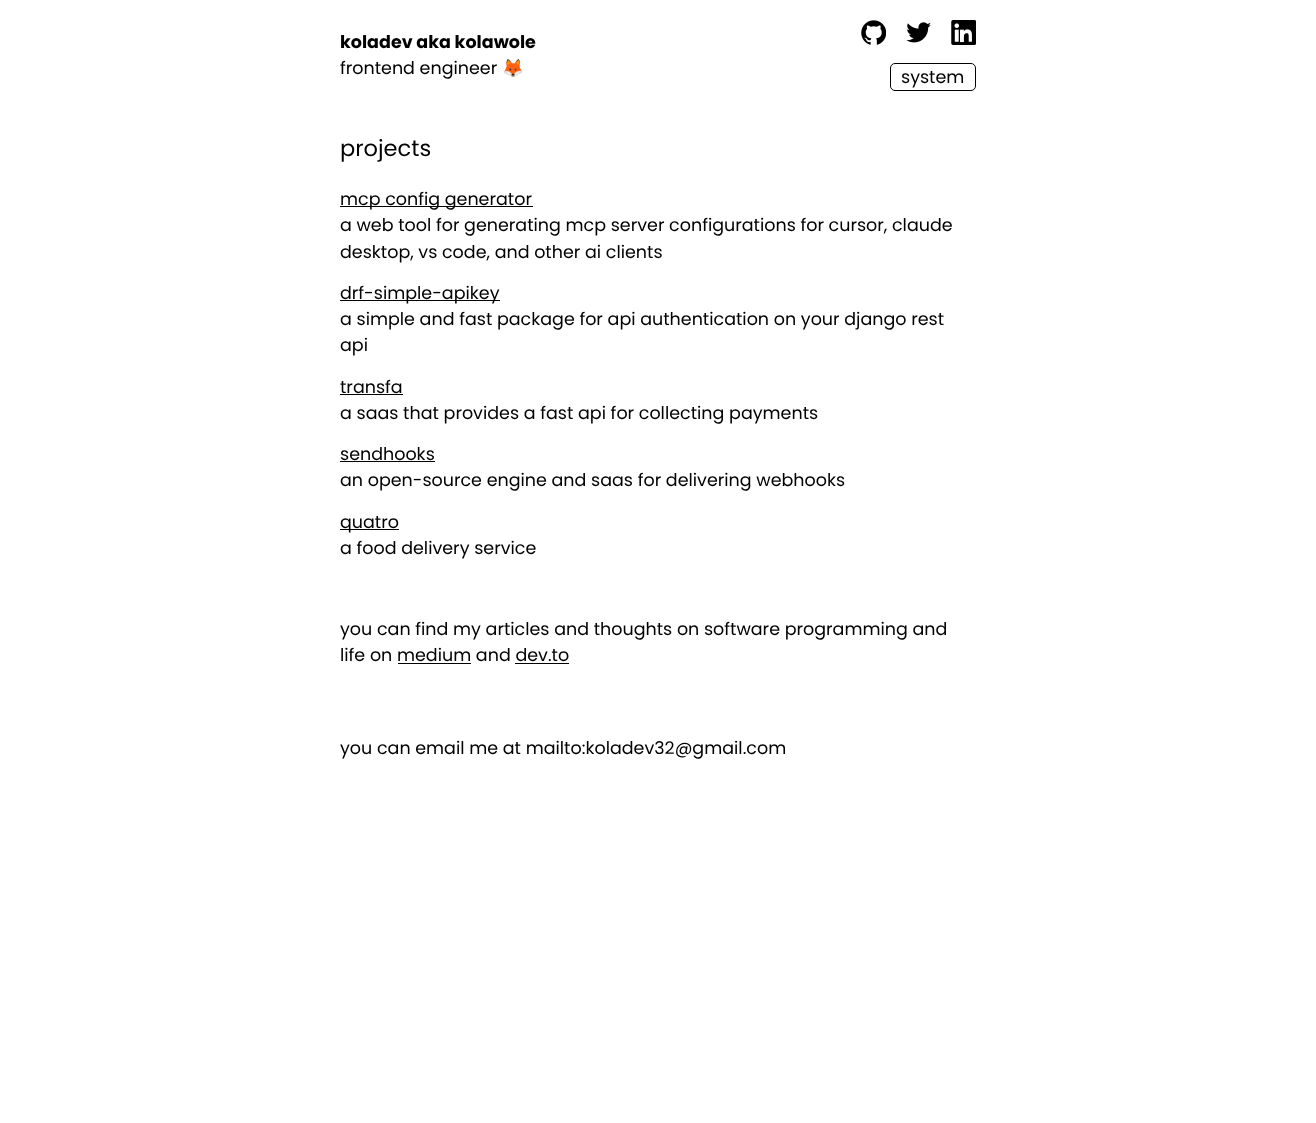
<!DOCTYPE html>
<meta charset="utf-8">
<style>body { margin: 0 } canvas { display: block }</style>
<canvas id="canvas" width="1316" height="1123"></canvas>
<script type="module">
  const canvas = document.getElementById("canvas");
  const ctx = canvas.getContext("2d");
  ctx.miterLimit = 4;
  ctx.fontKerning = "normal";
  async function loadImage(src) {
    const img = new Image();
    img.src = src;
    await img.decode();
    return img;
  }

  ctx.fillStyle = "#ffffff";
  ctx.fillRect(0, 0, 1316, 1123);
  ctx.font = "bold 17.5px Poppins";
  ctx.fillStyle = "#000000";
  ctx.fillText("koladev aka kolawole", 340, 48);
  ctx.font = "17.5px Poppins";
  ctx.fillText("frontend engineer", 340, 74);
  ctx.font = "17.5px Noto Color Emoji";
  ctx.fillText("🦊", 502, 74);
  ctx.drawImage(await loadImage("img1.png"), 861, 20, 25, 25);
  ctx.drawImage(await loadImage("img2.png"), 906, 22, 25, 21);
  ctx.drawImage(await loadImage("img3.png"), 951, 20, 25, 25);
  ctx.beginPath();
  ctx.roundRect(890.5, 63.5, 85, 27, 4.5);
  ctx.strokeStyle = "#000000";
  ctx.stroke();
  ctx.font = "17.5px Poppins";
  ctx.fillText("system", 901, 83);
  ctx.font = "22.5px Poppins";
  ctx.fillText("projects", 340, 156);
  ctx.fillRect(340, 206, 193, 1);
  ctx.font = "17.5px Poppins";
  ctx.fillText("mcp config generator", 340, 205);
  ctx.fillText("a web tool for generating mcp server configurations for cursor, claude", 340, 231);
  ctx.fillText("desktop, vs code, and other ai clients", 340, 258);
  ctx.fillRect(340, 300, 160, 1);
  ctx.fillText("drf-simple-apikey", 340, 299);
  ctx.fillText("a simple and fast package for api authentication on your django rest", 340, 325);
  ctx.fillText("api", 340, 351);
  ctx.fillText("transfa", 340, 393);
  ctx.fillRect(340, 394, 63, 1);
  ctx.fillText("a saas that provides a fast api for collecting payments", 340, 419);
  ctx.fillText("sendhooks", 340, 460);
  ctx.fillRect(340, 461, 95, 1);
  ctx.fillText("an open-source engine and saas for delivering webhooks", 340, 486);
  ctx.fillRect(340, 529, 59, 1);
  ctx.fillText("quatro", 340, 528);
  ctx.fillText("a food delivery service", 340, 554);
  ctx.fillText("you can find my articles and thoughts on software programming and", 340, 635);
  ctx.fillText("life on medium and dev.to", 340, 661);
  ctx.fillRect(398, 663, 73, 1);
  ctx.fillRect(515, 663, 54, 1);
  ctx.fillText("you can email me at mailto:koladev32@gmail.com", 340, 754);
</script>
